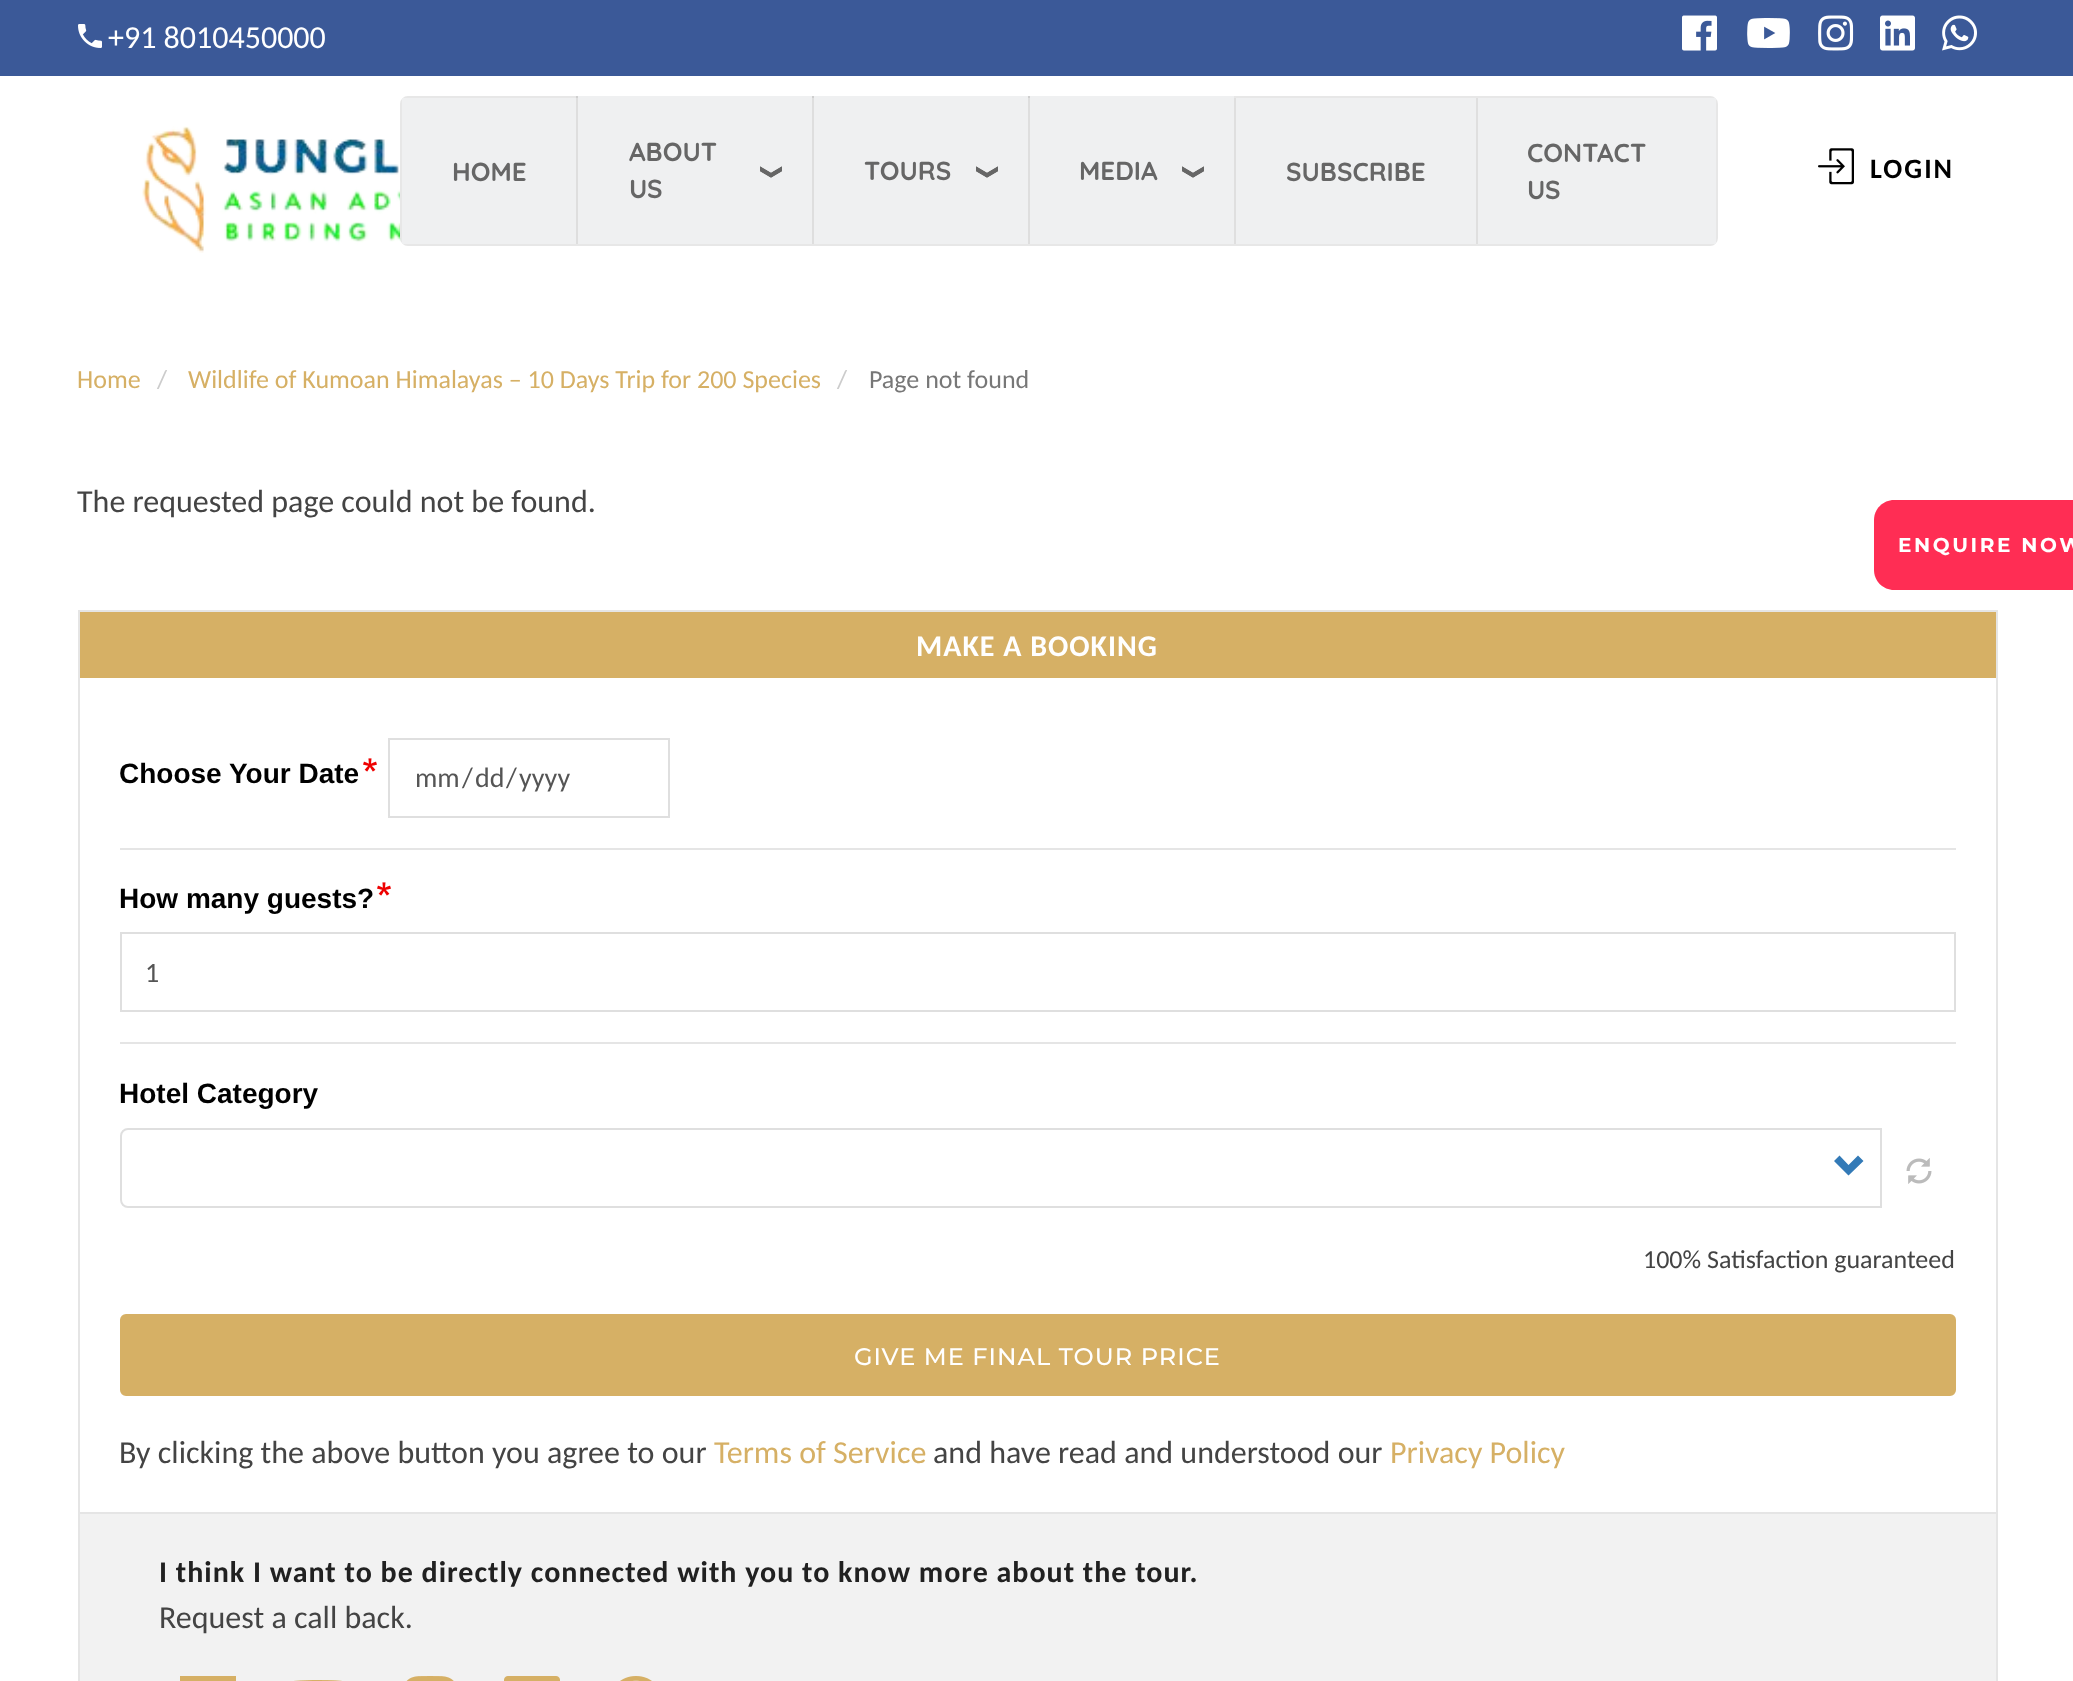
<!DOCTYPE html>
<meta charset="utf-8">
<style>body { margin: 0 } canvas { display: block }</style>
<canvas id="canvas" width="2073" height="1681"></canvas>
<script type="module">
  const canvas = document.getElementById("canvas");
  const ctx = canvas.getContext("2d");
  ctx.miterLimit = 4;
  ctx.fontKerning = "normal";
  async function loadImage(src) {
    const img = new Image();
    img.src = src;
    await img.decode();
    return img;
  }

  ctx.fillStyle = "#ffffff";
  ctx.fillRect(0, 0, 2073, 1681);
  ctx.fillStyle = "#3b5998";
  ctx.fillRect(0, 0, 2073, 76);
  ctx.drawImage(await loadImage("img1.png"), 78, 24, 24, 24);
  ctx.font = "32px Carlito";
  ctx.fillStyle = "#ffffff";
  ctx.fillText("+91 8010450000", 108, 48);
  ctx.drawImage(await loadImage("img2.png"), 1682, 15, 35, 36);
  ctx.drawImage(await loadImage("img3.png"), 1747, 18, 43, 30);
  ctx.drawImage(await loadImage("img4.png"), 1818, 15, 36, 36);
  ctx.drawImage(await loadImage("img5.png"), 1880, 15, 35, 36);
  ctx.drawImage(await loadImage("img6.png"), 1942, 15, 35, 36);
  ctx.drawImage(await loadImage("img7.png"), 142, 126, 260, 127);
  ctx.fillStyle = "#f8f8f8";
  ctx.beginPath();
  ctx.roundRect(401, 97, 1316, 148, 7);
  ctx.fill();
  ctx.strokeStyle = "#e7e7e7";
  ctx.lineWidth = 2;
  ctx.stroke();
  ctx.fillStyle = "#eff0f1";
  ctx.fillRect(402, 98, 174, 146);
  ctx.font = "bold 26px Quicksand";
  ctx.fillStyle = "#666666";
  ctx.fillText("HOME", 452, 181);
  ctx.fillStyle = "rgba(0, 0, 0, 0.1)";
  ctx.fillRect(576, 96, 2, 148);
  ctx.fillStyle = "#eff0f1";
  ctx.fillRect(578, 96, 234, 148);
  ctx.fillStyle = "#666666";
  ctx.fillText("ABOUT", 629, 161);
  ctx.drawImage(await loadImage("img8.png"), 760, 166, 22, 12);
  ctx.fillText("US", 629, 198);
  ctx.fillStyle = "rgba(0, 0, 0, 0.1)";
  ctx.fillRect(812, 96, 2, 148);
  ctx.fillStyle = "#eff0f1";
  ctx.fillRect(814, 96, 214, 148);
  ctx.fillStyle = "#666666";
  ctx.fillText("TOURS", 864, 180);
  ctx.drawImage(await loadImage("img8.png"), 976, 166, 22, 12);
  ctx.fillStyle = "rgba(0, 0, 0, 0.1)";
  ctx.fillRect(1028, 96, 2, 148);
  ctx.fillStyle = "#eff0f1";
  ctx.fillRect(1030, 96, 204, 148);
  ctx.fillStyle = "#666666";
  ctx.fillText("MEDIA", 1079, 180);
  ctx.drawImage(await loadImage("img8.png"), 1182, 166, 22, 12);
  ctx.fillStyle = "#dfdfdf";
  ctx.fillRect(1234, 98, 2, 146);
  ctx.fillStyle = "#eff0f1";
  ctx.fillRect(1236, 98, 240, 146);
  ctx.fillStyle = "#666666";
  ctx.fillText("SUBSCRIBE", 1286, 181);
  ctx.fillStyle = "#dfdfdf";
  ctx.fillRect(1476, 98, 2, 146);
  ctx.fillStyle = "#eff0f1";
  ctx.fillRect(1478, 98, 238, 146);
  ctx.fillStyle = "#666666";
  ctx.fillText("CONTACT", 1527, 162);
  ctx.fillText("US", 1527, 199);
  ctx.drawImage(await loadImage("img9.png"), 1818, 148, 36, 37);
  ctx.letterSpacing = "2px";
  ctx.font = "bold 28px Carlito";
  ctx.fillStyle = "#000000";
  ctx.fillText("LOGIN", 1870, 178);
  ctx.letterSpacing = "0px";
  ctx.font = "26px Carlito";
  ctx.fillStyle = "#d6b065";
  ctx.fillText("Home", 77, 388);
  ctx.fillStyle = "#cccccc";
  ctx.fillText("/", 157, 388);
  ctx.fillStyle = "#d6b065";
  ctx.fillText("Wildlife of Kumoan Himalayas – 10 Days Trip for 200 Species", 188, 388);
  ctx.fillStyle = "#cccccc";
  ctx.fillText("/", 837, 388);
  ctx.fillStyle = "#777777";
  ctx.fillText("Page not found", 869, 388);
  ctx.font = "32px Carlito";
  ctx.fillStyle = "#444444";
  ctx.fillText("The requested page could not be found.", 77, 512);
  ctx.strokeStyle = "#e5e5e5";
  ctx.strokeRect(79, 611, 1918, 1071);
  ctx.fillStyle = "#d6b065";
  ctx.fillRect(80, 612, 1916, 66);
  ctx.letterSpacing = "1px";
  ctx.font = "bold 30px Carlito";
  ctx.fillStyle = "#ffffff";
  ctx.fillText("MAKE A BOOKING", 916, 656);
  ctx.letterSpacing = "0px";
  ctx.font = "bold 28px Liberation Sans";
  ctx.fillStyle = "#000000";
  ctx.fillText("Choose Your Date", 119, 783);
  ctx.drawImage(await loadImage("img10.png"), 363, 758, 14, 14);
  ctx.strokeStyle = "#dfdfdf";
  ctx.strokeRect(389, 739, 280, 78);
  ctx.font = "28px Carlito";
  ctx.fillStyle = "#555555";
  ctx.fillText("mm", 415, 787);
  ctx.fillText("/", 462, 787);
  ctx.fillText("dd", 475, 787);
  ctx.fillText("/", 506, 787);
  ctx.fillText("yyyy", 519, 787);
  ctx.fillStyle = "#e5e5e5";
  ctx.fillRect(120, 848, 1836, 2);
  ctx.font = "bold 28px Liberation Sans";
  ctx.fillStyle = "#000000";
  ctx.fillText("How many guests?", 119, 908);
  ctx.drawImage(await loadImage("img10.png"), 377, 882, 14, 14);
  ctx.strokeRect(121, 933, 1834, 78);
  ctx.font = "28px Carlito";
  ctx.fillStyle = "#555555";
  ctx.fillText("1", 145, 982);
  ctx.fillStyle = "#e5e5e5";
  ctx.fillRect(120, 1042, 1836, 2);
  ctx.font = "bold 28px Liberation Sans";
  ctx.fillStyle = "#000000";
  ctx.fillText("Hotel Category", 119, 1103);
  ctx.beginPath();
  ctx.roundRect(121, 1129, 1760, 78, [7, 0, 0, 7]);
  ctx.stroke();
  ctx.fillStyle = "#337ab7";
  ctx.beginPath();
  ctx.moveTo(1863.5, 1161);
  ctx.lineTo(1848.5, 1175.5);
  ctx.lineTo(1834, 1161);
  ctx.lineTo(1839.5, 1155.5);
  ctx.lineTo(1848.5, 1165);
  ctx.lineTo(1858, 1155.5);
  ctx.closePath();
  ctx.fill();
  ctx.drawImage(await loadImage("img11.png"), 1906, 1158, 26, 26);
  ctx.font = "26px Carlito";
  ctx.fillStyle = "#444444";
  ctx.fillText("100% Satisfaction guaranteed", 1643, 1268);
  ctx.fillStyle = "#d6b065";
  ctx.beginPath();
  ctx.roundRect(121, 1315, 1834, 80, 5);
  ctx.fill();
  ctx.strokeStyle = "#d6b065";
  ctx.stroke();
  ctx.letterSpacing = "1px";
  ctx.font = "500 24px Montserrat";
  ctx.fillStyle = "#ffffff";
  ctx.fillText("GIVE ME FINAL TOUR PRICE", 854, 1365);
  ctx.letterSpacing = "0px";
  ctx.font = "32px Carlito";
  ctx.fillStyle = "#444444";
  ctx.fillText("By clicking the above button you agree to our", 119, 1463);
  ctx.fillStyle = "#d6b065";
  ctx.fillText("Terms of Service", 714, 1463);
  ctx.fillStyle = "#444444";
  ctx.fillText("and have read and understood our", 933, 1463);
  ctx.fillStyle = "#d6b065";
  ctx.fillText("Privacy Policy", 1390, 1463);
  ctx.fillStyle = "#f2f2f2";
  ctx.fillRect(80, 1514, 1916, 167);
  ctx.fillStyle = "#e5e5e5";
  ctx.fillRect(80, 1512, 1916, 2);
  ctx.letterSpacing = "1px";
  ctx.font = "bold 30px Carlito";
  ctx.fillStyle = "#212121";
  ctx.fillText("I think I want to be directly connected with you to know more about the tour.", 159, 1582);
  ctx.letterSpacing = "0px";
  ctx.font = "32px Carlito";
  ctx.fillStyle = "#444444";
  ctx.fillText("Request a call back.", 159, 1628);
  ctx.fillStyle = "#d6b065";
  ctx.fillRect(180, 1676, 56, 5);
  ctx.drawImage(await loadImage("img12.png"), 294, 1680, 48, 1);
  ctx.drawImage(await loadImage("img13.png"), 406, 1676, 48, 5);
  ctx.drawImage(await loadImage("img14.png"), 504, 1676, 56, 5);
  ctx.drawImage(await loadImage("img15.png"), 620, 1676, 32, 5);
  ctx.fillStyle = "#ff2d54";
  ctx.beginPath();
  ctx.moveTo(1894, 500);
  ctx.lineTo(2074, 500);
  ctx.lineTo(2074, 590);
  ctx.lineTo(1894, 590);
  ctx.bezierCurveTo(1883, 590, 1874, 581, 1874, 570);
  ctx.lineTo(1874, 520);
  ctx.bezierCurveTo(1874, 509, 1883, 500, 1894, 500);
  ctx.closePath();
  ctx.fill();
  ctx.letterSpacing = "2.6px";
  ctx.font = "bold 20px Montserrat";
  ctx.fillStyle = "#ffffff";
  ctx.fillText("ENQUIRE NOW", 1898, 552);
</script>
